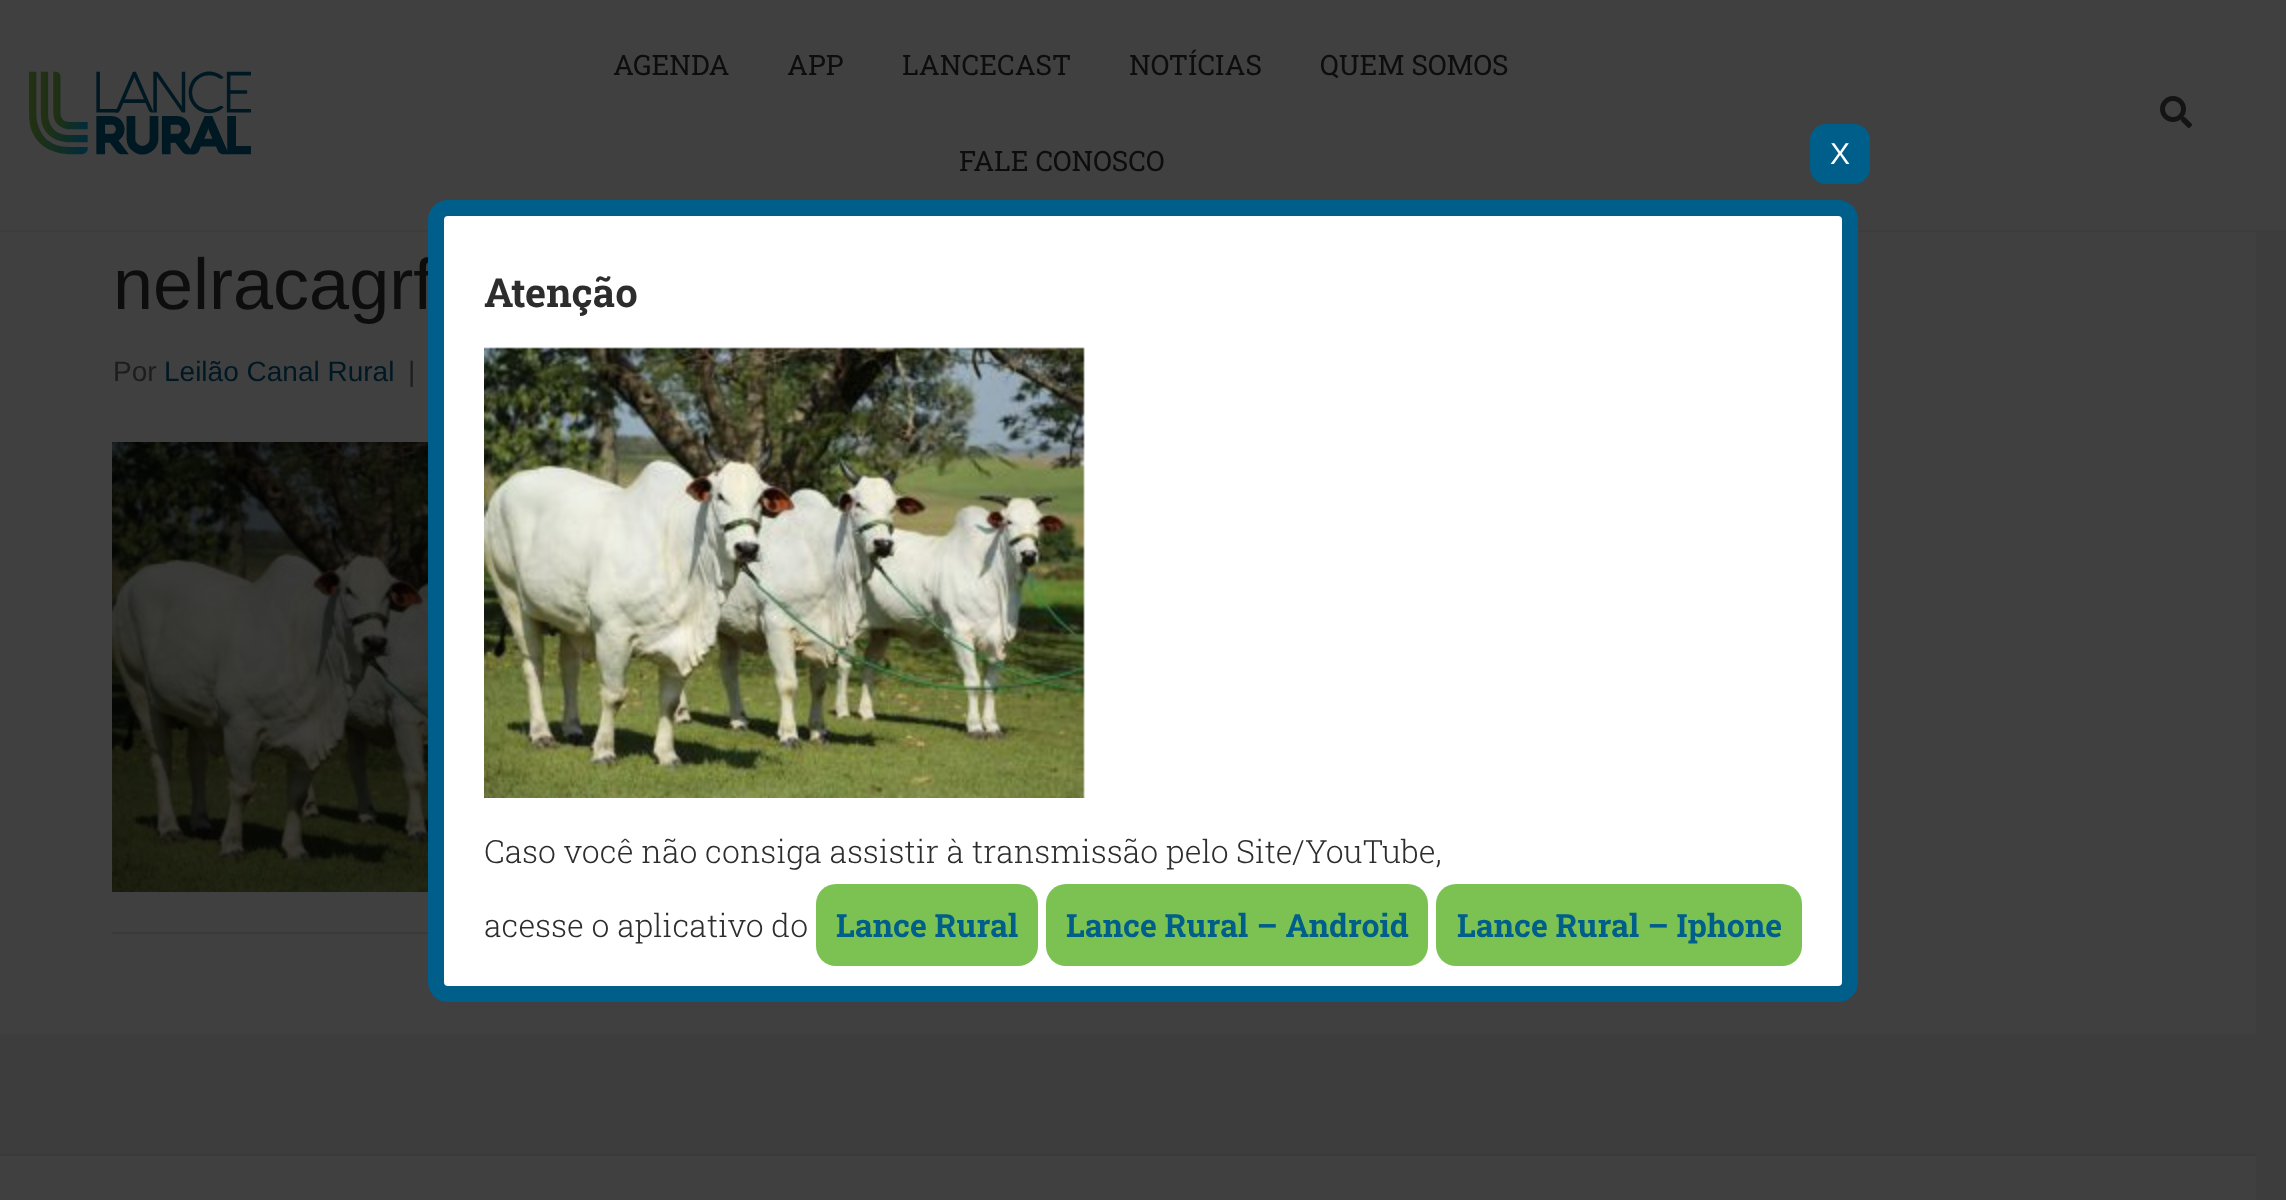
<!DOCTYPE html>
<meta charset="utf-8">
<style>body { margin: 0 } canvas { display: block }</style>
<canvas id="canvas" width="2286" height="1200"></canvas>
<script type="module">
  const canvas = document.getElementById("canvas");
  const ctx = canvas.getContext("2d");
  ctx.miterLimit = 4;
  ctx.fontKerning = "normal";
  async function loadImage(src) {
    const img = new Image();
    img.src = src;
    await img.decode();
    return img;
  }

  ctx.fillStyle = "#3d3d3d";
  ctx.fillRect(0, 0, 2286, 1200);
  ctx.fillStyle = "#404040";
  ctx.fillRect(0, 0, 2286, 230);
  ctx.drawImage(await loadImage("img1.png"), 29, 71, 222, 84);
  ctx.font = "28px Roboto Slab";
  ctx.fillStyle = "#0d0d0d";
  ctx.fillText("AGENDA", 613, 75);
  ctx.fillText("APP", 787, 75);
  ctx.fillText("LANCECAST", 902, 75);
  ctx.fillText("NOTÍCIAS", 1129, 75);
  ctx.fillText("QUEM SOMOS", 1320, 75);
  ctx.fillText("FALE CONOSCO", 959, 171);
  ctx.drawImage(await loadImage("img2.png"), 2160, 96, 32, 32);
  ctx.fillStyle = "#404040";
  ctx.fillRect(0, 232, 2256, 802);
  ctx.font = "72px Liberation Sans";
  ctx.fillStyle = "#0d0d0d";
  ctx.fillText("nelracagrf", 113, 309);
  ctx.font = "28px Liberation Sans";
  ctx.fillStyle = "#1d1d1d";
  ctx.fillText("Por", 113, 381);
  ctx.fillStyle = "#001823";
  ctx.fillText("Leilão Canal Rural", 164, 381);
  ctx.fillStyle = "#1d1d1d";
  ctx.fillText("|", 408, 381);
  ctx.drawImage(await loadImage("img3.png"), 112, 442, 316, 450);
  ctx.fillStyle = "#3a3a3a";
  ctx.fillRect(112, 932, 316, 2);
  ctx.fillStyle = "#404040";
  ctx.fillRect(0, 1156, 2256, 44);
  ctx.fillStyle = "#3a3a3a";
  ctx.fillRect(0, 1154, 2256, 2);
  ctx.fillStyle = "#ffffff";
  ctx.beginPath();
  ctx.roundRect(436, 208, 1414, 786, 12);
  ctx.fill();
  ctx.strokeStyle = "#005e8a";
  ctx.lineWidth = 16;
  ctx.stroke();
  ctx.fillStyle = "#005e8a";
  ctx.beginPath();
  ctx.roundRect(1810, 124, 60, 60, 16);
  ctx.fill();
  ctx.font = "30px Liberation Sans";
  ctx.fillStyle = "#ffffff";
  ctx.fillText("X", 1830, 164);
  ctx.font = "bold 40px Roboto Slab";
  ctx.fillStyle = "#2d2d2d";
  ctx.fillText("Atenção", 484, 307);
  ctx.drawImage(await loadImage("img4.png"), 484, 347, 601, 451);
  ctx.font = "300 32px Roboto Slab";
  ctx.fillText("Caso você não consiga assistir à transmissão pelo Site/YouTube,", 484, 863);
  ctx.fillText("acesse o aplicativo do", 484, 937);
  ctx.fillStyle = "#7bc252";
  ctx.beginPath();
  ctx.roundRect(816, 884, 222, 82, 20);
  ctx.fill();
  ctx.font = "bold 32px Roboto Slab";
  ctx.fillStyle = "#005e8a";
  ctx.fillText("Lance Rural", 836, 937);
  ctx.fillStyle = "#7bc252";
  ctx.beginPath();
  ctx.roundRect(1046, 884, 382, 82, 20);
  ctx.fill();
  ctx.fillStyle = "#005e8a";
  ctx.fillText("Lance Rural – Android", 1066, 937);
  ctx.fillStyle = "#7bc252";
  ctx.beginPath();
  ctx.roundRect(1436, 884, 366, 82, 20);
  ctx.fill();
  ctx.fillStyle = "#005e8a";
  ctx.fillText("Lance Rural – Iphone", 1457, 937);
</script>
